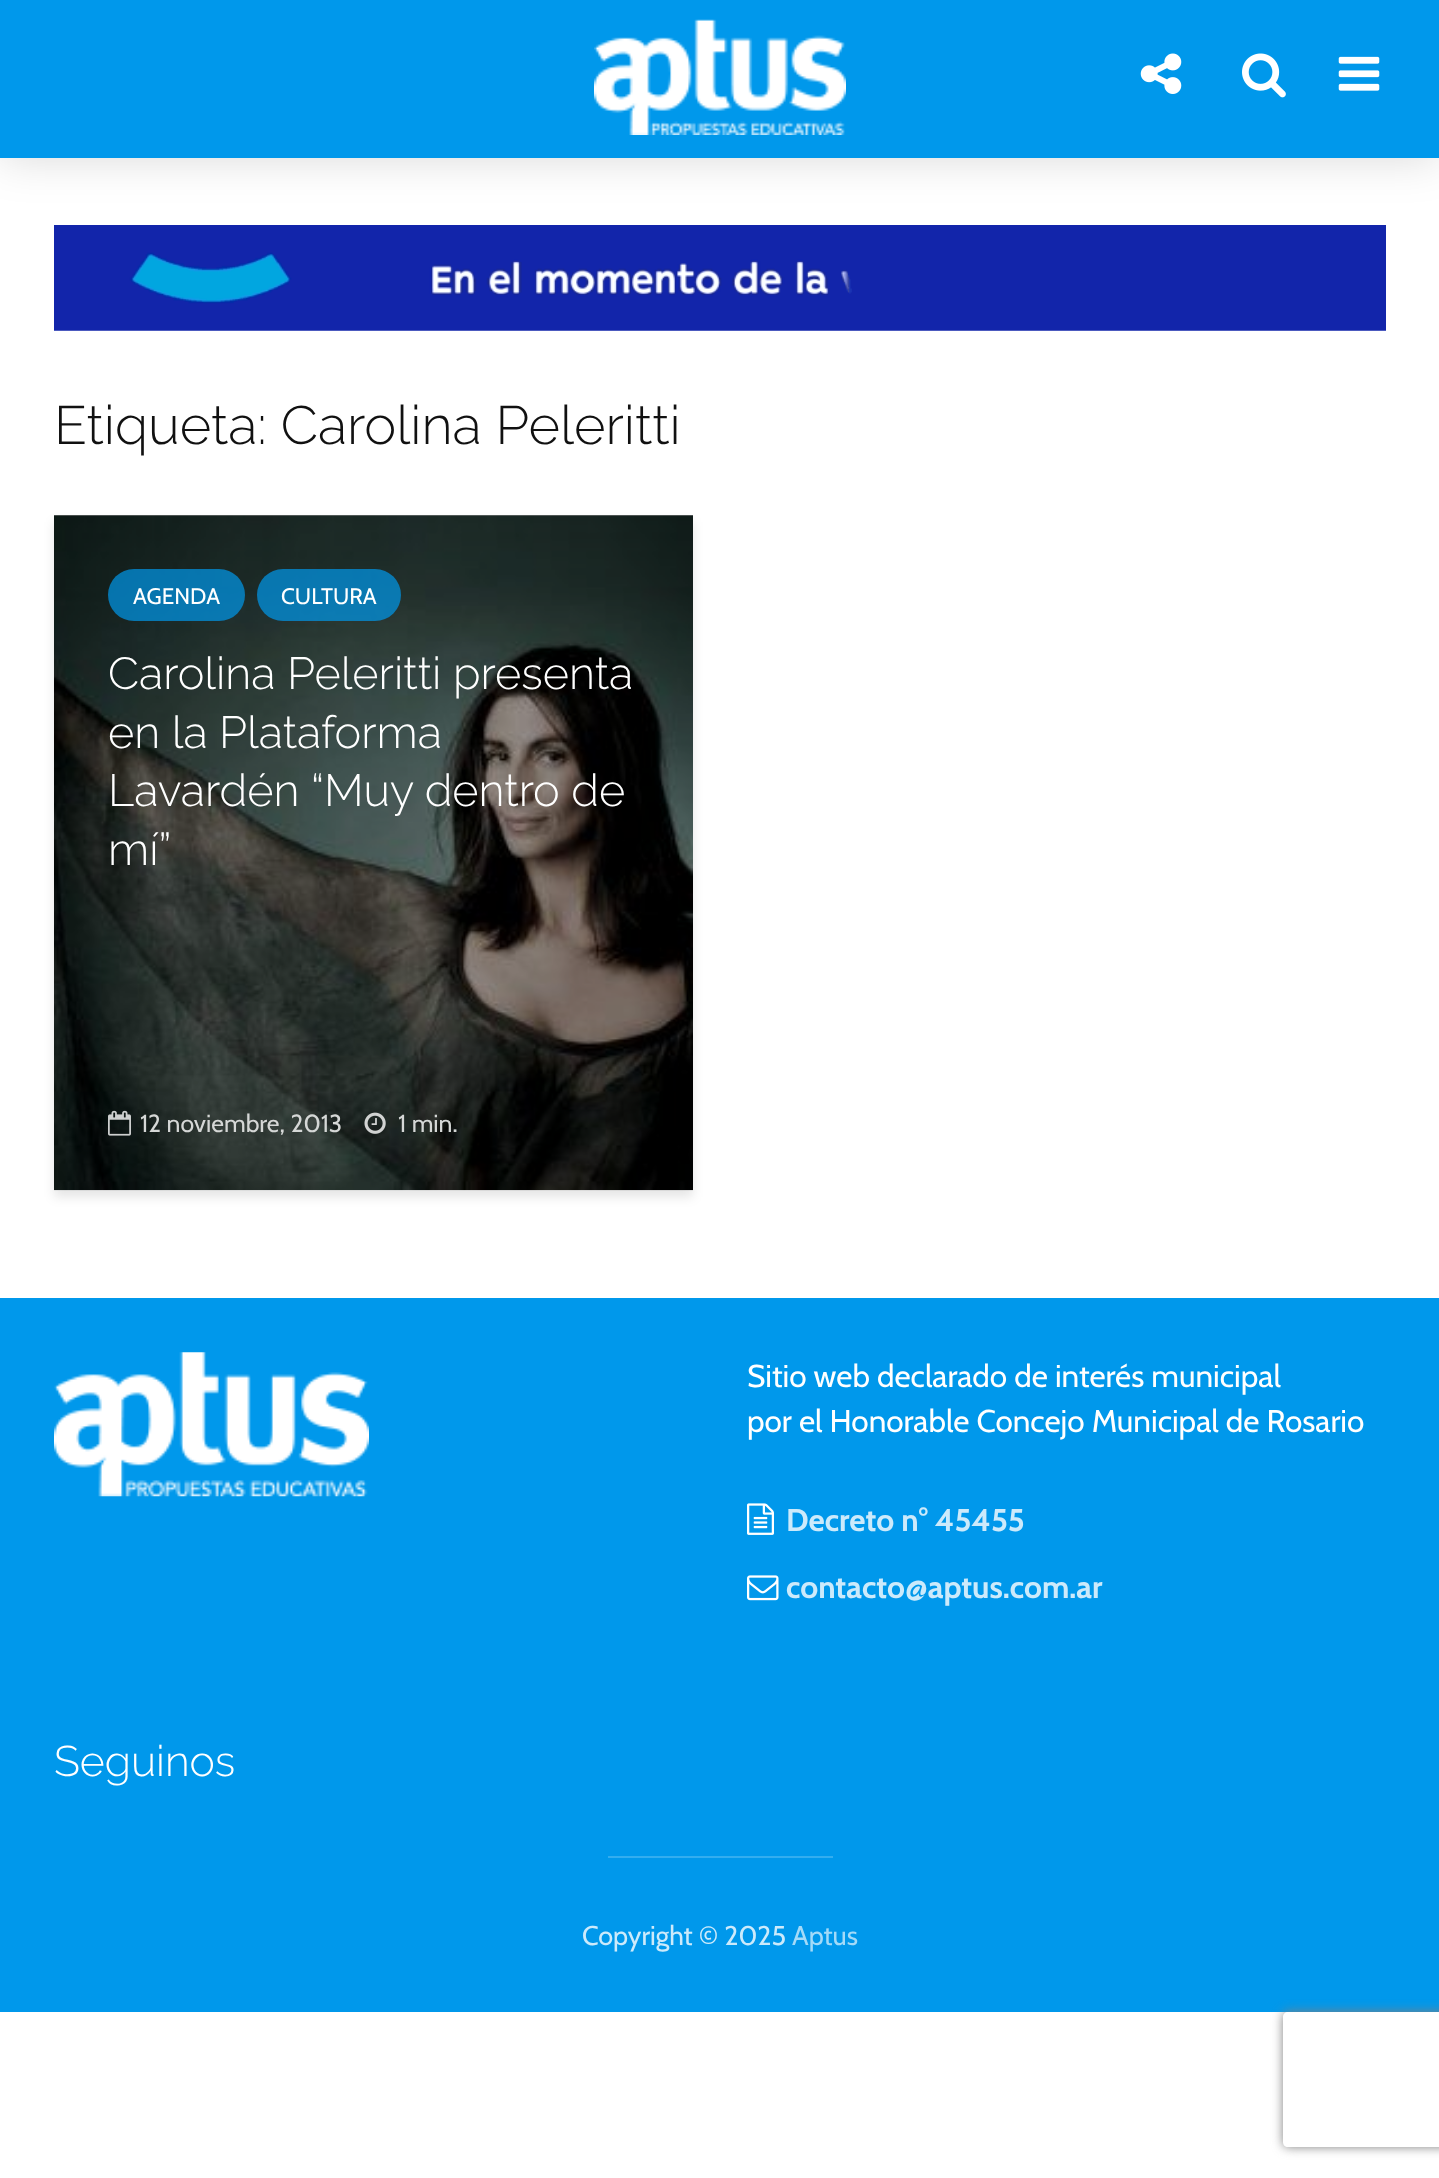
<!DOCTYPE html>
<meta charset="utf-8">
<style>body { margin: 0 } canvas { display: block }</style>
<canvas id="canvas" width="1439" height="2178"></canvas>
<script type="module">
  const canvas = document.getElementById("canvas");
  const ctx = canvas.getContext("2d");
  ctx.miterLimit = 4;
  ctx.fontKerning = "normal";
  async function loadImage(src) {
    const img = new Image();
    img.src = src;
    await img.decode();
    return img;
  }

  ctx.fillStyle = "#ffffff";
  ctx.fillRect(0, 0, 1439, 2178);
  ctx.drawImage(await loadImage("img5.png"), 54, 225, 1332, 106);
  ctx.fillStyle = "rgba(0, 0, 0, 0.15)";
  ctx.filter = "blur(22.5px)";
  ctx.beginPath();
  ctx.rect(0, 0, 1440, 158);
  ctx.fill();
  ctx.filter = "none";
  ctx.fillStyle = "#0098eb";
  ctx.fillRect(0, 0, 1439, 158);
  ctx.drawImage(await loadImage("img1.png"), 594, 19, 252, 116);
  ctx.drawImage(await loadImage("img2.png"), 1140, 53, 42, 41);
  ctx.drawImage(await loadImage("img3.png"), 1242, 53, 44, 45);
  ctx.drawImage(await loadImage("img4.png"), 1338, 56, 42, 35);
  ctx.font = "300 54px Raleway";
  ctx.fillStyle = "#111111";
  ctx.fillText("Etiqueta: Carolina Peleritti", 54, 444);
  ctx.fillStyle = "rgba(0, 1, 1, 0.1)";
  ctx.filter = "blur(5.5px)";
  ctx.beginPath();
  ctx.rect(54, 522, 639, 675);
  ctx.fill();
  ctx.filter = "none";
  ctx.drawImage(await loadImage("img6.png"), 54, 515, 639, 676);
  ctx.fillStyle = "rgba(0, 0, 0, 0.4)";
  ctx.fillRect(54, 515, 639, 675);
  ctx.fillStyle = "rgba(0, 152, 235, 0.7)";
  ctx.beginPath();
  ctx.roundRect(108, 569, 137, 52, 26);
  ctx.fill();
  ctx.font = "22.5px Cabin";
  ctx.fillStyle = "#ffffff";
  ctx.fillText("AGENDA", 133, 604);
  ctx.fillStyle = "rgba(0, 152, 235, 0.7)";
  ctx.beginPath();
  ctx.roundRect(257, 569, 144, 52, 26);
  ctx.fill();
  ctx.fillStyle = "#ffffff";
  ctx.fillText("CULTURA", 281, 604);
  ctx.font = "300 45px Raleway";
  ctx.fillText("Carolina Peleritti presenta", 108, 689);
  ctx.fillText("en la Plataforma", 108, 748);
  ctx.fillText("Lavardén “Muy dentro de", 108, 806);
  ctx.fillText("mí”", 108, 865);
  ctx.drawImage(await loadImage("img7.png"), 108, 1110, 23, 26);
  ctx.font = "24.75px Cabin";
  ctx.fillStyle = "#d5d7d6";
  ctx.fillText("12 noviembre, 2013", 140, 1132);
  ctx.drawImage(await loadImage("img8.png"), 364, 1112, 22, 22);
  ctx.fillText("1 min.", 398, 1132);
  ctx.fillStyle = "#0098eb";
  ctx.fillRect(0, 1298, 1439, 714);
  ctx.drawImage(await loadImage("img9.png"), 54, 1352, 315, 145);
  ctx.font = "31.5px Cabin";
  ctx.fillStyle = "#ffffff";
  ctx.fillText("Sitio web declarado de interés municipal", 747, 1387);
  ctx.fillText("por el Honorable Concejo Municipal de Rosario", 747, 1432);
  ctx.drawImage(await loadImage("img10.png"), 747, 1503, 27, 32);
  ctx.font = "bold 31.5px Cabin";
  ctx.fillStyle = "#cceafb";
  ctx.fillText("Decreto n° 45455", 786, 1531);
  ctx.drawImage(await loadImage("img11.png"), 747, 1575, 32, 26);
  ctx.fillText("contacto@aptus.com.ar", 786, 1598);
  ctx.font = "300 42.75px Raleway";
  ctx.fillStyle = "#ffffff";
  ctx.fillText("Seguinos", 54, 1776);
  ctx.fillStyle = "#33adef";
  ctx.fillRect(608, 1856, 225, 2);
  ctx.font = "27px Cabin";
  ctx.fillStyle = "#cceafb";
  ctx.fillText("Copyright © 2025", 582, 1945);
  ctx.fillStyle = "#a3daf8";
  ctx.fillText("Aptus", 792, 1945);
  ctx.save();
  ctx.beginPath();
  ctx.moveTo(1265, 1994);
  ctx.lineTo(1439, 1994);
  ctx.lineTo(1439, 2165);
  ctx.lineTo(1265, 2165);
  ctx.closePath();
  ctx.moveTo(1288, 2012);
  ctx.lineTo(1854, 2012);
  ctx.bezierCurveTo(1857, 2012, 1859, 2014, 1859, 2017);
  ctx.lineTo(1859, 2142);
  ctx.bezierCurveTo(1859, 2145, 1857, 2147, 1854, 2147);
  ctx.lineTo(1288, 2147);
  ctx.bezierCurveTo(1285, 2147, 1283, 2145, 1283, 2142);
  ctx.lineTo(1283, 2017);
  ctx.bezierCurveTo(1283, 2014, 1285, 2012, 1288, 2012);
  ctx.closePath();
  ctx.clip("evenodd");
  ctx.fillStyle = "#808080";
  ctx.filter = "blur(5.5px)";
  ctx.beginPath();
  ctx.roundRect(1283, 2012, 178, 135, 5);
  ctx.fill();
  ctx.filter = "none";
  ctx.restore();
</script>
